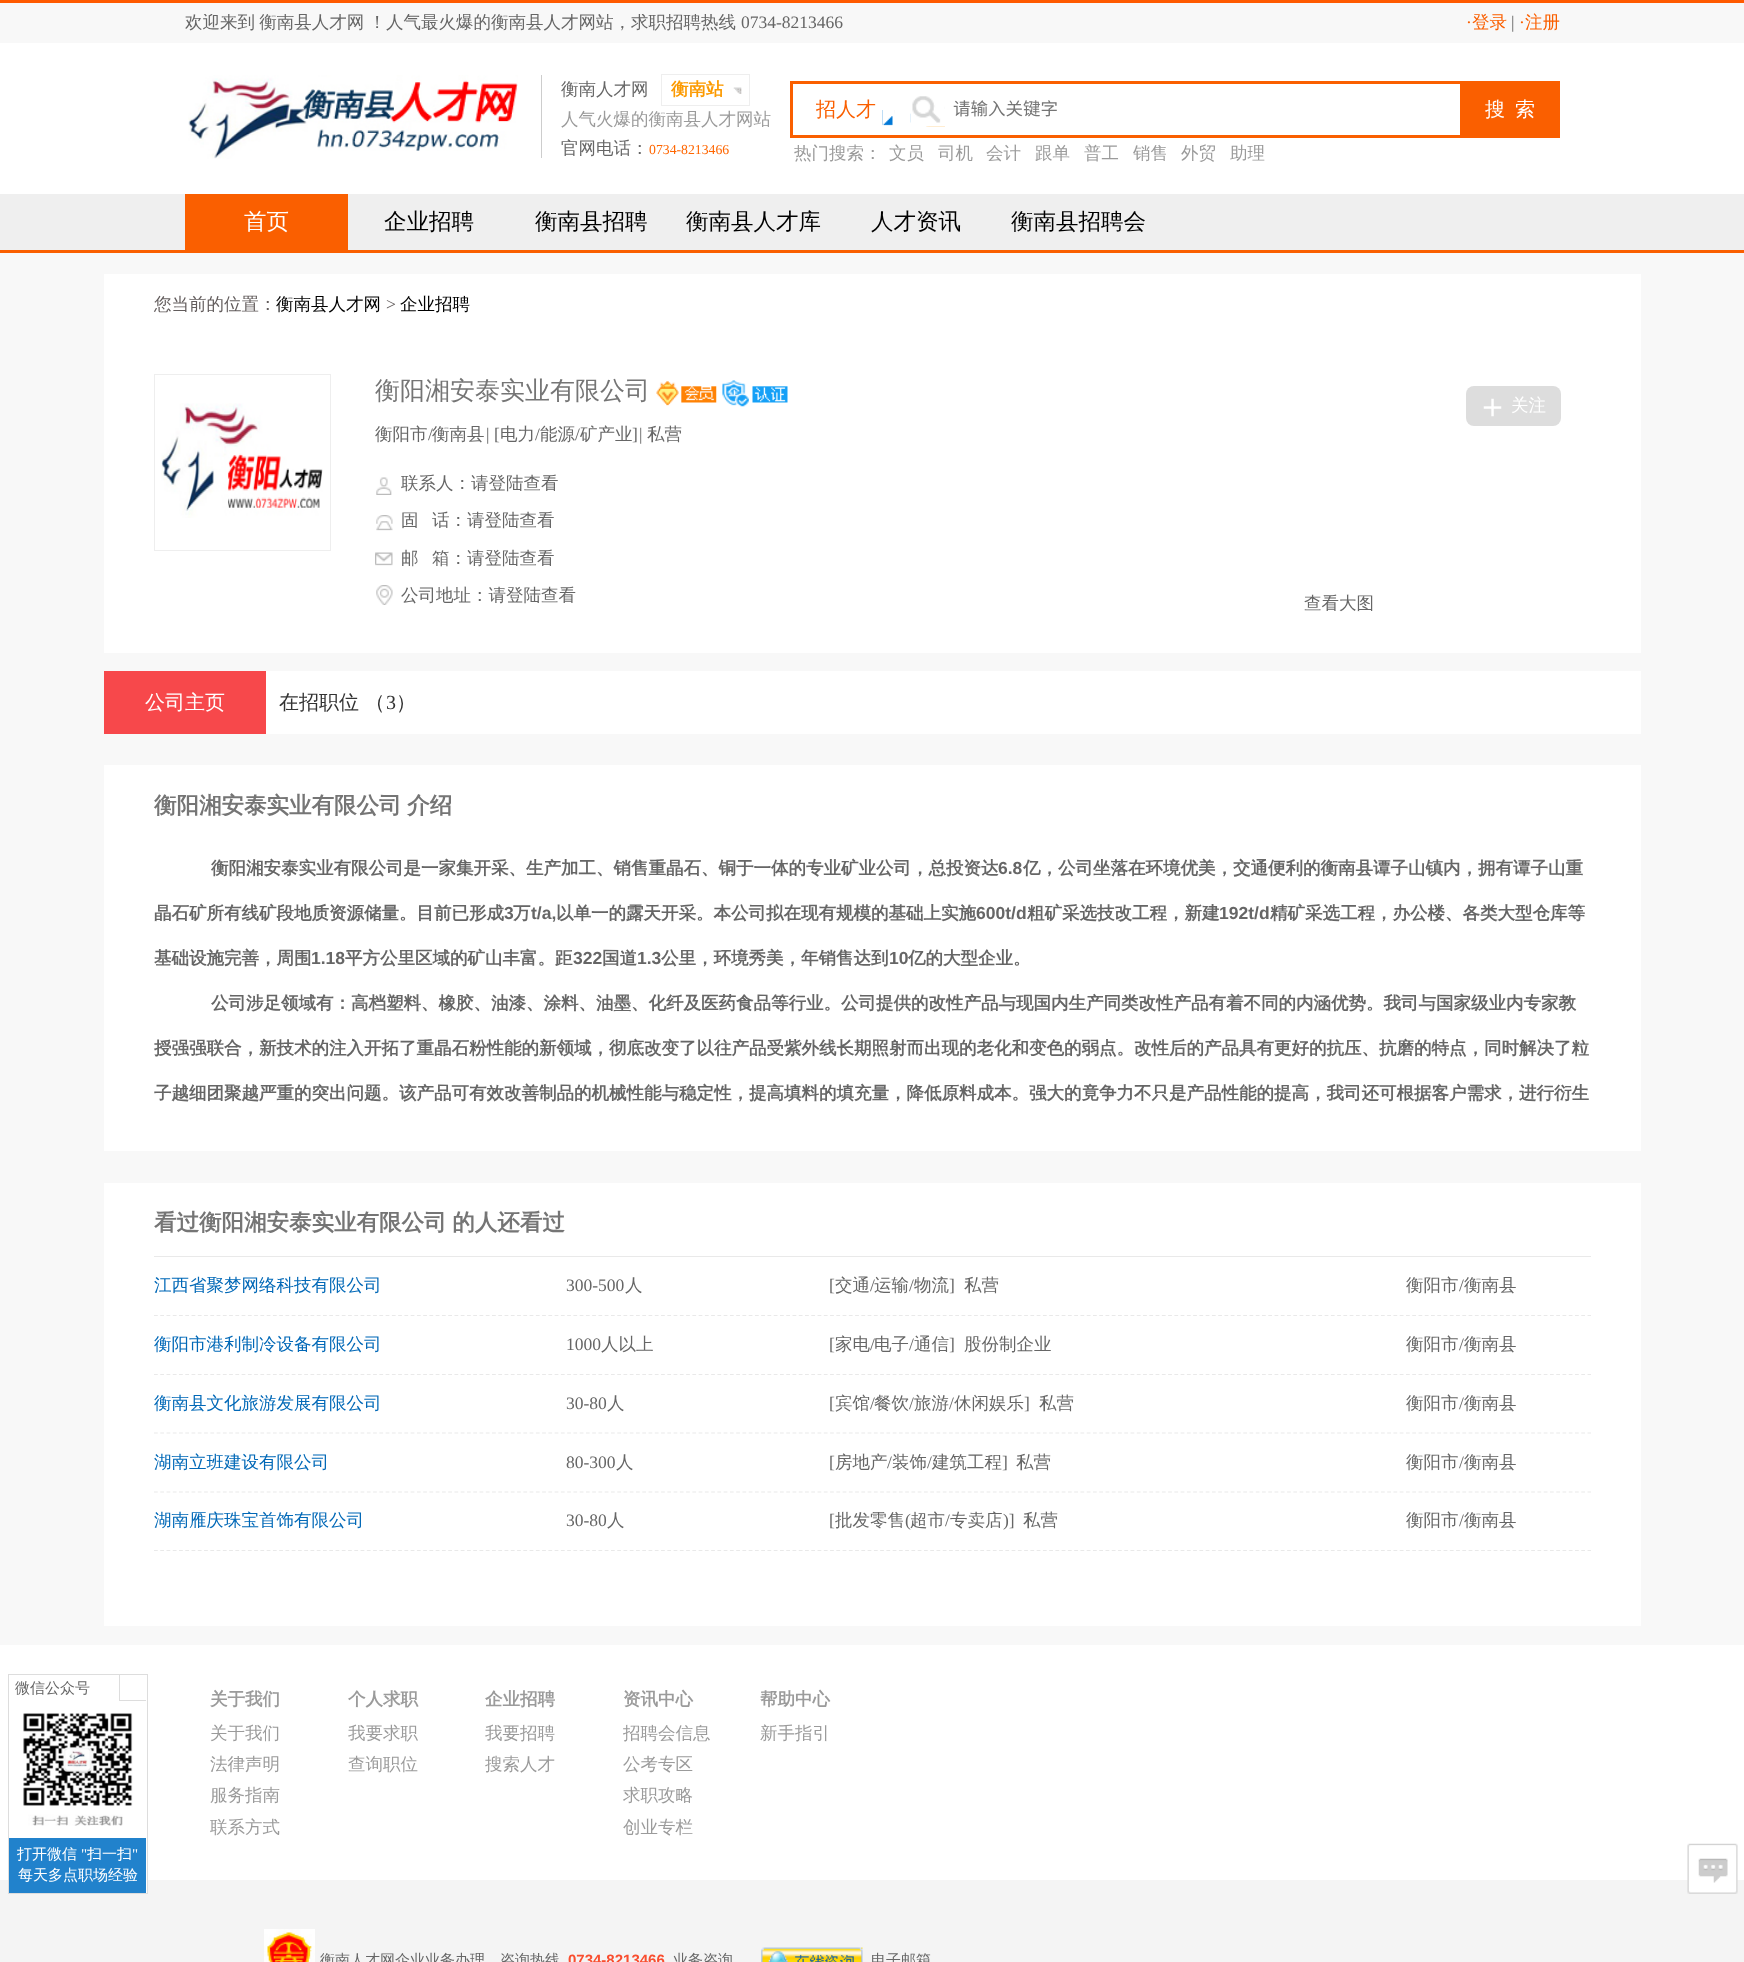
<!DOCTYPE html>
<meta charset="utf-8">
<style>body { margin: 0 } canvas { display: block }</style>
<canvas id="canvas" width="1744" height="1962"></canvas>
<script type="module">
  const canvas = document.getElementById("canvas");
  const ctx = canvas.getContext("2d");
  ctx.miterLimit = 4;
  ctx.fontKerning = "normal";
  async function loadImage(src) {
    const img = new Image();
    img.src = src;
    await img.decode();
    return img;
  }

  ctx.fillStyle = "#f8f8f8";
  ctx.fillRect(0, 0, 1744, 1962);
  ctx.fillStyle = "#ff5a00";
  ctx.fillRect(0, 0, 1744, 3);
  ctx.save();
  ctx.beginPath();
  ctx.rect(185, 14, 658, 17);
  ctx.clip();
  ctx.wordSpacing = "-1px";
  ctx.font = "500 17.5px WenQuanYi Zen Hei";
  ctx.fillStyle = "#666666";
  ctx.fillText("欢迎来到 衡南县人才网 ！人气最火爆的衡南县人才网站，求职招聘热线", 185, 28);
  ctx.restore();
  ctx.font = "17.5px Liberation Serif";
  ctx.fillStyle = "#666666";
  ctx.fillText("0734-8213466", 741, 28);
  ctx.fillStyle = "#fa5f00";
  ctx.fillText("·", 1466, 28);
  ctx.font = "500 17.5px WenQuanYi Zen Hei";
  ctx.fillText("登录", 1472, 28);
  ctx.font = "17.5px Liberation Serif";
  ctx.fillStyle = "#666666";
  ctx.fillText("|", 1511, 28);
  ctx.fillStyle = "#fa5f00";
  ctx.fillText("·", 1519, 28);
  ctx.font = "500 17.5px WenQuanYi Zen Hei";
  ctx.fillText("注册", 1525, 28);
  ctx.fillStyle = "#ffffff";
  ctx.fillRect(0, 43, 1744, 151);
  ctx.drawImage(await loadImage("img1.png"), 188, 75, 330, 84);
  ctx.fillStyle = "#cdcdcd";
  ctx.fillRect(541, 75, 1, 83);
  ctx.fillStyle = "#666666";
  ctx.fillText("衡南人才网", 561, 95);
  ctx.strokeStyle = "#eeeeee";
  ctx.strokeRect(661.5, 74.5, 88, 31);
  ctx.font = "bold 17.5px WenQuanYi Zen Hei";
  ctx.fillStyle = "#fc9a01";
  ctx.fillText("衡南站", 671, 95);
  ctx.drawImage(await loadImage("img2.png"), 733, 87, 9, 7);
  ctx.font = "500 17.5px WenQuanYi Zen Hei";
  ctx.fillStyle = "#9b9b9b";
  ctx.fillText("人气火爆的衡南县人才网站", 561, 125);
  ctx.fillStyle = "#666666";
  ctx.fillText("官网电话：", 561, 154);
  ctx.font = "13.75px Liberation Serif";
  ctx.fillStyle = "#ff6600";
  ctx.fillText("0734-8213466", 649, 154);
  ctx.fillStyle = "#fa5f00";
  ctx.fillRect(790, 81, 770, 57);
  ctx.fillStyle = "#ffffff";
  ctx.fillRect(793, 84, 667, 51);
  ctx.font = "500 20px WenQuanYi Zen Hei";
  ctx.fillStyle = "#fa5f00";
  ctx.fillText("招人才", 816, 116);
  ctx.drawImage(await loadImage("img3.png"), 882, 110, 13, 16);
  ctx.drawImage(await loadImage("img4.png"), 910, 96, 35, 31);
  ctx.font = "17.5px Noto Sans CJK SC";
  ctx.fillStyle = "#757575";
  ctx.fillText("请输入关键字", 953, 115);
  ctx.font = "500 20px WenQuanYi Zen Hei";
  ctx.fillStyle = "#ffffff";
  ctx.fillText("搜", 1485, 116);
  ctx.fillText("索", 1515, 116);
  ctx.font = "500 17.5px WenQuanYi Zen Hei";
  ctx.fillStyle = "#9b9b9b";
  ctx.fillText("热门搜索：", 794, 159);
  ctx.fillText("文员", 889, 159);
  ctx.fillText("司机", 938, 159);
  ctx.fillText("会计", 986, 159);
  ctx.fillText("跟单", 1035, 159);
  ctx.fillText("普工", 1084, 159);
  ctx.fillText("销售", 1133, 159);
  ctx.fillText("外贸", 1181, 159);
  ctx.fillText("助理", 1230, 159);
  ctx.fillStyle = "#efefef";
  ctx.fillRect(0, 194, 1744, 56);
  ctx.fillStyle = "#fa5f00";
  ctx.fillRect(0, 250, 1744, 3);
  ctx.fillRect(185, 194, 163, 56);
  ctx.font = "500 22.5px WenQuanYi Zen Hei";
  ctx.fillStyle = "#ffffff";
  ctx.fillText("首页", 244, 229);
  ctx.fillStyle = "#000000";
  ctx.fillText("企业招聘", 384, 229);
  ctx.fillText("衡南县招聘", 535, 229);
  ctx.fillText("衡南县人才库", 686, 229);
  ctx.fillText("人才资讯", 871, 229);
  ctx.fillText("衡南县招聘会", 1011, 229);
  ctx.fillStyle = "#ffffff";
  ctx.fillRect(104, 274, 1537, 379);
  ctx.font = "500 17.5px WenQuanYi Zen Hei";
  ctx.fillStyle = "#625c5c";
  ctx.fillText("您当前的位置：", 154, 310);
  ctx.fillStyle = "#000000";
  ctx.fillText("衡南县人才网", 276, 310);
  ctx.font = "17.5px Liberation Serif";
  ctx.fillStyle = "#625c5c";
  ctx.fillText(">", 386, 310);
  ctx.font = "500 17.5px WenQuanYi Zen Hei";
  ctx.fillStyle = "#000000";
  ctx.fillText("企业招聘", 400, 310);
  ctx.strokeRect(154.5, 374.5, 176, 176);
  ctx.drawImage(await loadImage("img5.png"), 161, 403, 162, 115);
  ctx.font = "500 25px WenQuanYi Zen Hei";
  ctx.fillStyle = "#757575";
  ctx.fillText("衡阳湘安泰实业有限公司", 375, 399);
  ctx.drawImage(await loadImage("img6.png"), 656, 381, 61, 25);
  ctx.drawImage(await loadImage("img7.png"), 722, 380, 66, 27);
  ctx.fillStyle = "#dddddd";
  ctx.beginPath();
  ctx.roundRect(1466, 386, 95, 40, 8);
  ctx.fill();
  ctx.drawImage(await loadImage("img8.png"), 1483, 398, 19, 19);
  ctx.font = "500 17.5px WenQuanYi Zen Hei";
  ctx.fillStyle = "#ffffff";
  ctx.fillText("关注", 1511, 411);
  ctx.fillStyle = "#666666";
  ctx.fillText("衡阳市", 375, 440);
  ctx.font = "17.5px Liberation Serif";
  ctx.fillText("/", 428, 440);
  ctx.font = "500 17.5px WenQuanYi Zen Hei";
  ctx.fillText("衡南县", 432, 440);
  ctx.font = "italic 17.5px Liberation Serif";
  ctx.fillText("|", 485, 440);
  ctx.font = "17.5px Liberation Serif";
  ctx.fillText("[", 494, 440);
  ctx.font = "500 17.5px WenQuanYi Zen Hei";
  ctx.fillText("电力", 500, 440);
  ctx.font = "17.5px Liberation Serif";
  ctx.fillText("/", 535, 440);
  ctx.font = "500 17.5px WenQuanYi Zen Hei";
  ctx.fillText("能源", 540, 440);
  ctx.font = "17.5px Liberation Serif";
  ctx.fillText("/", 575, 440);
  ctx.font = "500 17.5px WenQuanYi Zen Hei";
  ctx.fillText("矿产业", 580, 440);
  ctx.font = "17.5px Liberation Serif";
  ctx.fillText("]", 632, 440);
  ctx.font = "italic 17.5px Liberation Serif";
  ctx.fillText("|", 638, 440);
  ctx.font = "500 17.5px WenQuanYi Zen Hei";
  ctx.fillText("私营", 647, 440);
  ctx.drawImage(await loadImage("img9.png"), 376, 477, 16, 18);
  ctx.fillText("联系人：请登陆查看", 401, 489);
  ctx.drawImage(await loadImage("img10.png"), 376, 515, 17, 16);
  ctx.fillText("固", 401, 526);
  ctx.fillText("话：请登陆查看", 432, 526);
  ctx.drawImage(await loadImage("img11.png"), 375, 552, 18, 14);
  ctx.fillText("邮", 401, 564);
  ctx.fillText("箱：请登陆查看", 432, 564);
  ctx.drawImage(await loadImage("img12.png"), 376, 585, 17, 20);
  ctx.fillText("公司地址：请登陆查看", 401, 601);
  ctx.fillText("查看大图", 1304, 609);
  ctx.fillStyle = "#ffffff";
  ctx.fillRect(266, 671, 1375, 63);
  ctx.fillStyle = "#f7484b";
  ctx.fillRect(104, 671, 162, 63);
  ctx.font = "500 20px WenQuanYi Zen Hei";
  ctx.fillStyle = "#ffffff";
  ctx.fillText("公司主页", 145, 709);
  ctx.fillStyle = "#333333";
  ctx.fillText("在招职位 （", 279, 709);
  ctx.font = "20px Liberation Serif";
  ctx.fillText("3", 386, 709);
  ctx.font = "500 20px WenQuanYi Zen Hei";
  ctx.fillText("）", 396, 709);
  ctx.fillStyle = "#ffffff";
  ctx.fillRect(104, 765, 1537, 386);
  ctx.wordSpacing = "-1px";
  ctx.font = "bold 22.5px WenQuanYi Zen Hei";
  ctx.fillStyle = "#757575";
  ctx.fillText("衡阳湘安泰实业有限公司 介绍", 154, 813);
  ctx.wordSpacing = "0px";
  ctx.font = "bold 17.5px WenQuanYi Zen Hei";
  ctx.fillStyle = "#666666";
  ctx.fillText("衡阳湘安泰实业有限公司是一家集开采、生产加工、销售重晶石、铜于一体的专业矿业公司，总投资达", 211, 874);
  ctx.font = "bold 17.5px Liberation Sans";
  ctx.fillText("6.8", 998, 874);
  ctx.font = "bold 17.5px WenQuanYi Zen Hei";
  ctx.fillText("亿，公司坐落在环境优美，交通便利的衡南县谭子山镇内，拥有谭子山重", 1023, 874);
  ctx.fillText("晶石矿所有线矿段地质资源储量。目前已形成", 154, 919);
  ctx.font = "bold 17.5px Liberation Sans";
  ctx.fillText("3", 504, 919);
  ctx.font = "bold 17.5px WenQuanYi Zen Hei";
  ctx.fillText("万", 513, 919);
  ctx.font = "bold 17.5px Liberation Sans";
  ctx.fillText("t/a,", 531, 919);
  ctx.font = "bold 17.5px WenQuanYi Zen Hei";
  ctx.fillText("以单一的露天开采。本公司拟在现有规模的基础上实施", 556, 919);
  ctx.font = "bold 17.5px Liberation Sans";
  ctx.fillText("600t/d", 976, 919);
  ctx.font = "bold 17.5px WenQuanYi Zen Hei";
  ctx.fillText("粗矿采选技改工程，新建", 1027, 919);
  ctx.font = "bold 17.5px Liberation Sans";
  ctx.fillText("192t/d", 1219, 919);
  ctx.font = "bold 17.5px WenQuanYi Zen Hei";
  ctx.fillText("精矿采选工程，办公楼、各类大型仓库等", 1270, 919);
  ctx.fillText("基础设施完善，周围", 154, 964);
  ctx.font = "bold 17.5px Liberation Sans";
  ctx.fillText("1.18", 311, 964);
  ctx.font = "bold 17.5px WenQuanYi Zen Hei";
  ctx.fillText("平方公里区域的矿山丰富。距", 345, 964);
  ctx.font = "bold 17.5px Liberation Sans";
  ctx.fillText("322", 573, 964);
  ctx.font = "bold 17.5px WenQuanYi Zen Hei";
  ctx.fillText("国道", 602, 964);
  ctx.font = "bold 17.5px Liberation Sans";
  ctx.fillText("1.3", 637, 964);
  ctx.font = "bold 17.5px WenQuanYi Zen Hei";
  ctx.fillText("公里，环境秀美，年销售达到", 661, 964);
  ctx.font = "bold 17.5px Liberation Sans";
  ctx.fillText("10", 889, 964);
  ctx.font = "bold 17.5px WenQuanYi Zen Hei";
  ctx.fillText("亿的大型企业。", 908, 964);
  ctx.fillText("公司涉足领域有：高档塑料、橡胶、油漆、涂料、油墨、化纤及医药食品等行业。公司提供的改性产品与现国内生产同类改性产品有着不同的内涵优势。我司与国家级业内专家教", 211, 1009);
  ctx.fillText("授强强联合，新技术的注入开拓了重晶石粉性能的新领域，彻底改变了以往产品受紫外线长期照射而出现的老化和变色的弱点。改性后的产品具有更好的抗压、抗磨的特点，同时解决了粒", 154, 1054);
  ctx.fillText("子越细团聚越严重的突出问题。该产品可有效改善制品的机械性能与稳定性，提高填料的填充量，降低原料成本。强大的竟争力不只是产品性能的提高，我司还可根据客户需求，进行衍生", 154, 1099);
  ctx.fillStyle = "#ffffff";
  ctx.fillRect(104, 1183, 1537, 443);
  ctx.fillStyle = "#e9e9e9";
  ctx.fillRect(154, 1256, 1437, 1);
  ctx.wordSpacing = "-1px";
  ctx.font = "bold 22.5px WenQuanYi Zen Hei";
  ctx.fillStyle = "#757575";
  ctx.fillText("看过衡阳湘安泰实业有限公司 的人还看过", 154, 1230);
  ctx.beginPath();
  ctx.moveTo(154, 1315.5);
  ctx.lineTo(1591, 1315.5);
  ctx.strokeStyle = "#e9e9e9";
  ctx.lineWidth = 1.2;
  ctx.setLineDash([3.75, 2.51]);
  ctx.stroke();
  ctx.wordSpacing = "0px";
  ctx.font = "500 17.5px WenQuanYi Zen Hei";
  ctx.fillStyle = "#0168b7";
  ctx.fillText("江西省聚梦网络科技有限公司", 154, 1291);
  ctx.font = "17.5px Liberation Serif";
  ctx.fillStyle = "#666666";
  ctx.fillText("300-500", 566, 1291);
  ctx.font = "500 17.5px WenQuanYi Zen Hei";
  ctx.fillText("人", 625, 1291);
  ctx.font = "17.5px Liberation Serif";
  ctx.fillText("[", 829, 1291);
  ctx.font = "500 17.5px WenQuanYi Zen Hei";
  ctx.fillText("交通", 835, 1291);
  ctx.font = "17.5px Liberation Serif";
  ctx.fillText("/", 870, 1291);
  ctx.font = "500 17.5px WenQuanYi Zen Hei";
  ctx.fillText("运输", 874, 1291);
  ctx.font = "17.5px Liberation Serif";
  ctx.fillText("/", 909, 1291);
  ctx.font = "500 17.5px WenQuanYi Zen Hei";
  ctx.fillText("物流", 914, 1291);
  ctx.font = "17.5px Liberation Serif";
  ctx.fillText("]", 949, 1291);
  ctx.font = "500 17.5px WenQuanYi Zen Hei";
  ctx.fillText("私营", 964, 1291);
  ctx.fillText("衡阳市", 1406, 1291);
  ctx.font = "17.5px Liberation Serif";
  ctx.fillText("/", 1459, 1291);
  ctx.font = "500 17.5px WenQuanYi Zen Hei";
  ctx.fillText("衡南县", 1464, 1291);
  ctx.beginPath();
  ctx.moveTo(154, 1374.5);
  ctx.lineTo(1591, 1374.5);
  ctx.stroke();
  ctx.fillStyle = "#0168b7";
  ctx.fillText("衡阳市港利制冷设备有限公司", 154, 1350);
  ctx.font = "17.5px Liberation Serif";
  ctx.fillStyle = "#666666";
  ctx.fillText("1000", 566, 1350);
  ctx.font = "500 17.5px WenQuanYi Zen Hei";
  ctx.fillText("人以上", 601, 1350);
  ctx.font = "17.5px Liberation Serif";
  ctx.fillText("[", 829, 1350);
  ctx.font = "500 17.5px WenQuanYi Zen Hei";
  ctx.fillText("家电", 835, 1350);
  ctx.font = "17.5px Liberation Serif";
  ctx.fillText("/", 870, 1350);
  ctx.font = "500 17.5px WenQuanYi Zen Hei";
  ctx.fillText("电子", 874, 1350);
  ctx.font = "17.5px Liberation Serif";
  ctx.fillText("/", 909, 1350);
  ctx.font = "500 17.5px WenQuanYi Zen Hei";
  ctx.fillText("通信", 914, 1350);
  ctx.font = "17.5px Liberation Serif";
  ctx.fillText("]", 949, 1350);
  ctx.font = "500 17.5px WenQuanYi Zen Hei";
  ctx.fillText("股份制企业", 964, 1350);
  ctx.fillText("衡阳市", 1406, 1350);
  ctx.font = "17.5px Liberation Serif";
  ctx.fillText("/", 1459, 1350);
  ctx.font = "500 17.5px WenQuanYi Zen Hei";
  ctx.fillText("衡南县", 1464, 1350);
  ctx.beginPath();
  ctx.moveTo(154, 1433);
  ctx.lineTo(1591, 1433);
  ctx.stroke();
  ctx.fillStyle = "#0168b7";
  ctx.fillText("衡南县文化旅游发展有限公司", 154, 1409);
  ctx.font = "17.5px Liberation Serif";
  ctx.fillStyle = "#666666";
  ctx.fillText("30-80", 566, 1409);
  ctx.font = "500 17.5px WenQuanYi Zen Hei";
  ctx.fillText("人", 607, 1409);
  ctx.font = "17.5px Liberation Serif";
  ctx.fillText("[", 829, 1409);
  ctx.font = "500 17.5px WenQuanYi Zen Hei";
  ctx.fillText("宾馆", 835, 1409);
  ctx.font = "17.5px Liberation Serif";
  ctx.fillText("/", 870, 1409);
  ctx.font = "500 17.5px WenQuanYi Zen Hei";
  ctx.fillText("餐饮", 874, 1409);
  ctx.font = "17.5px Liberation Serif";
  ctx.fillText("/", 909, 1409);
  ctx.font = "500 17.5px WenQuanYi Zen Hei";
  ctx.fillText("旅游", 914, 1409);
  ctx.font = "17.5px Liberation Serif";
  ctx.fillText("/", 949, 1409);
  ctx.font = "500 17.5px WenQuanYi Zen Hei";
  ctx.fillText("休闲娱乐", 954, 1409);
  ctx.font = "17.5px Liberation Serif";
  ctx.fillText("]", 1024, 1409);
  ctx.font = "500 17.5px WenQuanYi Zen Hei";
  ctx.fillText("私营", 1039, 1409);
  ctx.fillText("衡阳市", 1406, 1409);
  ctx.font = "17.5px Liberation Serif";
  ctx.fillText("/", 1459, 1409);
  ctx.font = "500 17.5px WenQuanYi Zen Hei";
  ctx.fillText("衡南县", 1464, 1409);
  ctx.beginPath();
  ctx.moveTo(154, 1492);
  ctx.lineTo(1591, 1492);
  ctx.stroke();
  ctx.fillStyle = "#0168b7";
  ctx.fillText("湖南立班建设有限公司", 154, 1468);
  ctx.font = "17.5px Liberation Serif";
  ctx.fillStyle = "#666666";
  ctx.fillText("80-300", 566, 1468);
  ctx.font = "500 17.5px WenQuanYi Zen Hei";
  ctx.fillText("人", 616, 1468);
  ctx.font = "17.5px Liberation Serif";
  ctx.fillText("[", 829, 1468);
  ctx.font = "500 17.5px WenQuanYi Zen Hei";
  ctx.fillText("房地产", 835, 1468);
  ctx.font = "17.5px Liberation Serif";
  ctx.fillText("/", 887, 1468);
  ctx.font = "500 17.5px WenQuanYi Zen Hei";
  ctx.fillText("装饰", 892, 1468);
  ctx.font = "17.5px Liberation Serif";
  ctx.fillText("/", 927, 1468);
  ctx.font = "500 17.5px WenQuanYi Zen Hei";
  ctx.fillText("建筑工程", 932, 1468);
  ctx.font = "17.5px Liberation Serif";
  ctx.fillText("]", 1002, 1468);
  ctx.font = "500 17.5px WenQuanYi Zen Hei";
  ctx.fillText("私营", 1016, 1468);
  ctx.fillText("衡阳市", 1406, 1468);
  ctx.font = "17.5px Liberation Serif";
  ctx.fillText("/", 1459, 1468);
  ctx.font = "500 17.5px WenQuanYi Zen Hei";
  ctx.fillText("衡南县", 1464, 1468);
  ctx.beginPath();
  ctx.moveTo(154, 1550.5);
  ctx.lineTo(1591, 1550.5);
  ctx.stroke();
  ctx.fillStyle = "#0168b7";
  ctx.fillText("湖南雁庆珠宝首饰有限公司", 154, 1526);
  ctx.font = "17.5px Liberation Serif";
  ctx.fillStyle = "#666666";
  ctx.fillText("30-80", 566, 1526);
  ctx.font = "500 17.5px WenQuanYi Zen Hei";
  ctx.fillText("人", 607, 1526);
  ctx.font = "17.5px Liberation Serif";
  ctx.fillText("[", 829, 1526);
  ctx.font = "500 17.5px WenQuanYi Zen Hei";
  ctx.fillText("批发零售", 835, 1526);
  ctx.font = "17.5px Liberation Serif";
  ctx.fillText("(", 905, 1526);
  ctx.font = "500 17.5px WenQuanYi Zen Hei";
  ctx.fillText("超市", 910, 1526);
  ctx.font = "17.5px Liberation Serif";
  ctx.fillText("/", 945, 1526);
  ctx.font = "500 17.5px WenQuanYi Zen Hei";
  ctx.fillText("专卖店", 950, 1526);
  ctx.font = "17.5px Liberation Serif";
  ctx.fillText(")]", 1003, 1526);
  ctx.font = "500 17.5px WenQuanYi Zen Hei";
  ctx.fillText("私营", 1023, 1526);
  ctx.fillText("衡阳市", 1406, 1526);
  ctx.font = "17.5px Liberation Serif";
  ctx.fillText("/", 1459, 1526);
  ctx.font = "500 17.5px WenQuanYi Zen Hei";
  ctx.fillText("衡南县", 1464, 1526);
  ctx.fillStyle = "#f4f4f4";
  ctx.fillRect(0, 1880, 1744, 82);
  ctx.fillStyle = "#ffffff";
  ctx.fillRect(9, 1880, 138, 13);
  ctx.fillRect(0, 1645, 1744, 235);
  ctx.strokeStyle = "#dddddd";
  ctx.lineWidth = 1;
  ctx.setLineDash([]);
  ctx.strokeRect(8.5, 1674.5, 139, 219);
  ctx.font = "500 15px WenQuanYi Zen Hei";
  ctx.fillStyle = "#666666";
  ctx.fillText("微信公众号", 15, 1693);
  ctx.fillStyle = "#dddddd";
  ctx.fillRect(119, 1700, 27, 1);
  ctx.fillRect(119, 1675, 1, 26);
  ctx.drawImage(await loadImage("img13.png"), 23, 1713, 110, 113);
  ctx.fillStyle = "#2182cc";
  ctx.fillRect(9, 1838, 137, 55);
  ctx.fillStyle = "#ffffff";
  ctx.fillText("打开微信", 17, 1859);
  ctx.font = "15px Liberation Serif";
  ctx.fillText("\"", 81, 1859);
  ctx.font = "500 15px WenQuanYi Zen Hei";
  ctx.fillText("扫一扫", 87, 1859);
  ctx.font = "15px Liberation Serif";
  ctx.fillText("\"", 132, 1859);
  ctx.font = "500 15px WenQuanYi Zen Hei";
  ctx.fillText("每天多点职场经验", 18, 1880);
  ctx.font = "bold 17.5px WenQuanYi Zen Hei";
  ctx.fillStyle = "#9b9b9b";
  ctx.fillText("关于我们", 210, 1705);
  ctx.font = "500 17.5px WenQuanYi Zen Hei";
  ctx.fillText("关于我们", 210, 1739);
  ctx.fillText("法律声明", 210, 1770);
  ctx.fillText("服务指南", 210, 1801);
  ctx.fillText("联系方式", 210, 1833);
  ctx.font = "bold 17.5px WenQuanYi Zen Hei";
  ctx.fillText("个人求职", 348, 1705);
  ctx.font = "500 17.5px WenQuanYi Zen Hei";
  ctx.fillText("我要求职", 348, 1739);
  ctx.fillText("查询职位", 348, 1770);
  ctx.font = "bold 17.5px WenQuanYi Zen Hei";
  ctx.fillText("企业招聘", 485, 1705);
  ctx.font = "500 17.5px WenQuanYi Zen Hei";
  ctx.fillText("我要招聘", 485, 1739);
  ctx.fillText("搜索人才", 485, 1770);
  ctx.font = "bold 17.5px WenQuanYi Zen Hei";
  ctx.fillText("资讯中心", 623, 1705);
  ctx.save();
  ctx.beginPath();
  ctx.rect(623, 1718, 125, 31);
  ctx.clip();
  ctx.font = "500 17.5px WenQuanYi Zen Hei";
  ctx.fillText("招聘会信息", 623, 1739);
  ctx.restore();
  ctx.font = "500 17.5px WenQuanYi Zen Hei";
  ctx.fillText("公考专区", 623, 1770);
  ctx.fillText("求职攻略", 623, 1801);
  ctx.fillText("创业专栏", 623, 1833);
  ctx.font = "bold 17.5px WenQuanYi Zen Hei";
  ctx.fillText("帮助中心", 760, 1705);
  ctx.font = "500 17.5px WenQuanYi Zen Hei";
  ctx.fillText("新手指引", 760, 1739);
  ctx.drawImage(await loadImage("img14.png"), 264, 1929, 51, 33);
  ctx.font = "500 15px WenQuanYi Zen Hei";
  ctx.fillStyle = "#666666";
  ctx.fillText("衡南人才网企业业务办理、咨询热线", 320, 1965);
  ctx.font = "bold 15px Liberation Sans";
  ctx.fillStyle = "#f94e2f";
  ctx.fillText("0734-8213466", 568, 1965);
  ctx.font = "500 15px WenQuanYi Zen Hei";
  ctx.fillStyle = "#666666";
  ctx.fillText("业务咨询", 673, 1965);
  ctx.drawImage(await loadImage("img15.png"), 761, 1947, 102, 15);
  ctx.fillText("电子邮箱", 871, 1965);
  ctx.drawImage(await loadImage("img16.png"), 1687, 1843, 51, 51);
</script>
